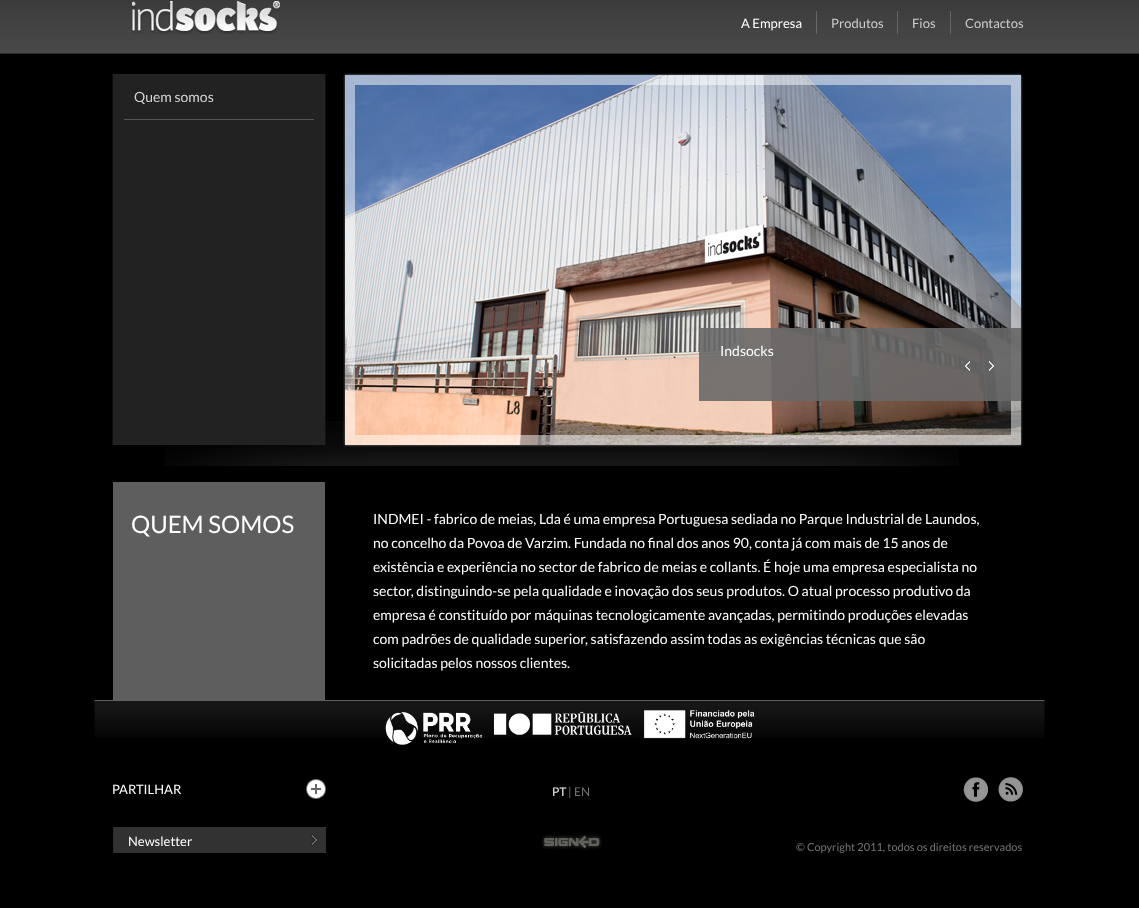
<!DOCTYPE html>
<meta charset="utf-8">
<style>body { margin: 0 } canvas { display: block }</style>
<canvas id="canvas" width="1139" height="908"></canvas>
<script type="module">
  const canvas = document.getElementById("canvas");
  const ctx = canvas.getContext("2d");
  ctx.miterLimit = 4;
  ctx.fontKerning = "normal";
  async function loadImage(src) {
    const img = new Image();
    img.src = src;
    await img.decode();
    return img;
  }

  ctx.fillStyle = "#000000";
  ctx.fillRect(0, 0, 1139, 908);
  ctx.drawImage(await loadImage("img1.png"), 0, 0, 1139, 54);
  ctx.drawImage(await loadImage("img2.png"), 131, 1, 149, 33);
  ctx.font = "13px Lato";
  ctx.fillStyle = "#ffffff";
  ctx.fillText("A Empresa", 741, 28);
  ctx.drawImage(await loadImage("img3.png"), 816, 11, 1, 23);
  ctx.fillStyle = "#cccccc";
  ctx.fillText("Produtos", 831, 28);
  ctx.drawImage(await loadImage("img3.png"), 897, 11, 1, 23);
  ctx.fillText("Fios", 912, 28);
  ctx.drawImage(await loadImage("img3.png"), 950, 11, 1, 23);
  ctx.fillText("Contactos", 965, 28);
  ctx.drawImage(await loadImage("img4.png"), 165, 421, 794, 45);
  ctx.drawImage(await loadImage("img5.png"), 112, 74, 214, 371);
  ctx.fillStyle = "#222222";
  ctx.fillRect(113, 74, 212, 371);
  ctx.fillStyle = "#535353";
  ctx.fillRect(124, 119, 190, 1);
  ctx.font = "14px Lato";
  ctx.fillStyle = "#d5d5d5";
  ctx.fillText("Quem somos", 134, 102);
  ctx.drawImage(await loadImage("img6.png"), 343, 73, 680, 374);
  ctx.drawImage(await loadImage("img7.png"), 345, 75, 676, 370);
  ctx.drawImage(await loadImage("img8.png"), 345, 75, 676, 370);
  ctx.fillStyle = "#ffffff";
  ctx.fillText("Indsocks", 720, 356);
  ctx.drawImage(await loadImage("img9.png"), 965, 361, 5, 10);
  ctx.drawImage(await loadImage("img10.png"), 989, 361, 5, 10);
  ctx.fillStyle = "#5e5e5e";
  ctx.fillRect(113, 482, 212, 218);
  ctx.font = "24px Lato";
  ctx.fillStyle = "#ffffff";
  ctx.fillText("QUEM SOMOS", 131, 533);
  ctx.font = "14px Lato";
  ctx.fillText("INDMEI - fabrico de meias, Lda é uma empresa Portuguesa sediada no Parque Industrial de Laundos,", 373, 524);
  ctx.fillText("no concelho da Povoa de Varzim. Fundada no final dos anos 90, conta já com mais de 15 anos de", 373, 548);
  ctx.fillText("existência e experiência no sector de fabrico de meias e collants. É hoje uma empresa especialista no", 373, 572);
  ctx.fillText("sector, distinguindo-se pela qualidade e inovação dos seus produtos. O atual processo produtivo da", 373, 596);
  ctx.fillText("empresa é constituído por máquinas tecnologicamente avançadas, permitindo produções elevadas", 373, 620);
  ctx.fillText("com padrões de qualidade superior, satisfazendo assim todas as exigências técnicas que são", 373, 644);
  ctx.fillText("solicitadas pelos nossos clientes.", 373, 668);
  ctx.drawImage(await loadImage("img11.png"), 94, 700, 951, 38);
  ctx.drawImage(await loadImage("img12.png"), 385, 710, 370, 35);
  ctx.font = "13px Lato";
  ctx.fillText("PARTILHAR", 112, 794);
  ctx.drawImage(await loadImage("img13.png"), 306, 779, 20, 20);
  ctx.drawImage(await loadImage("img14.png"), 113, 827, 213, 26);
  ctx.fillText("Newsletter", 128, 846);
  ctx.drawImage(await loadImage("img15.png"), 311, 834, 7, 12);
  ctx.font = "12px Lato";
  ctx.fillStyle = "#eeeeee";
  ctx.fillText("PT", 552, 796);
  ctx.fillStyle = "#767676";
  ctx.fillText("| EN", 568, 796);
  ctx.drawImage(await loadImage("img16.png"), 542, 834, 60, 16);
  ctx.drawImage(await loadImage("img17.png"), 963, 777, 25, 25);
  ctx.drawImage(await loadImage("img18.png"), 998, 777, 25, 25);
  ctx.font = "11px Lato";
  ctx.fillText("© Copyright 2011, todos os direitos reservados", 796, 851);
</script>
